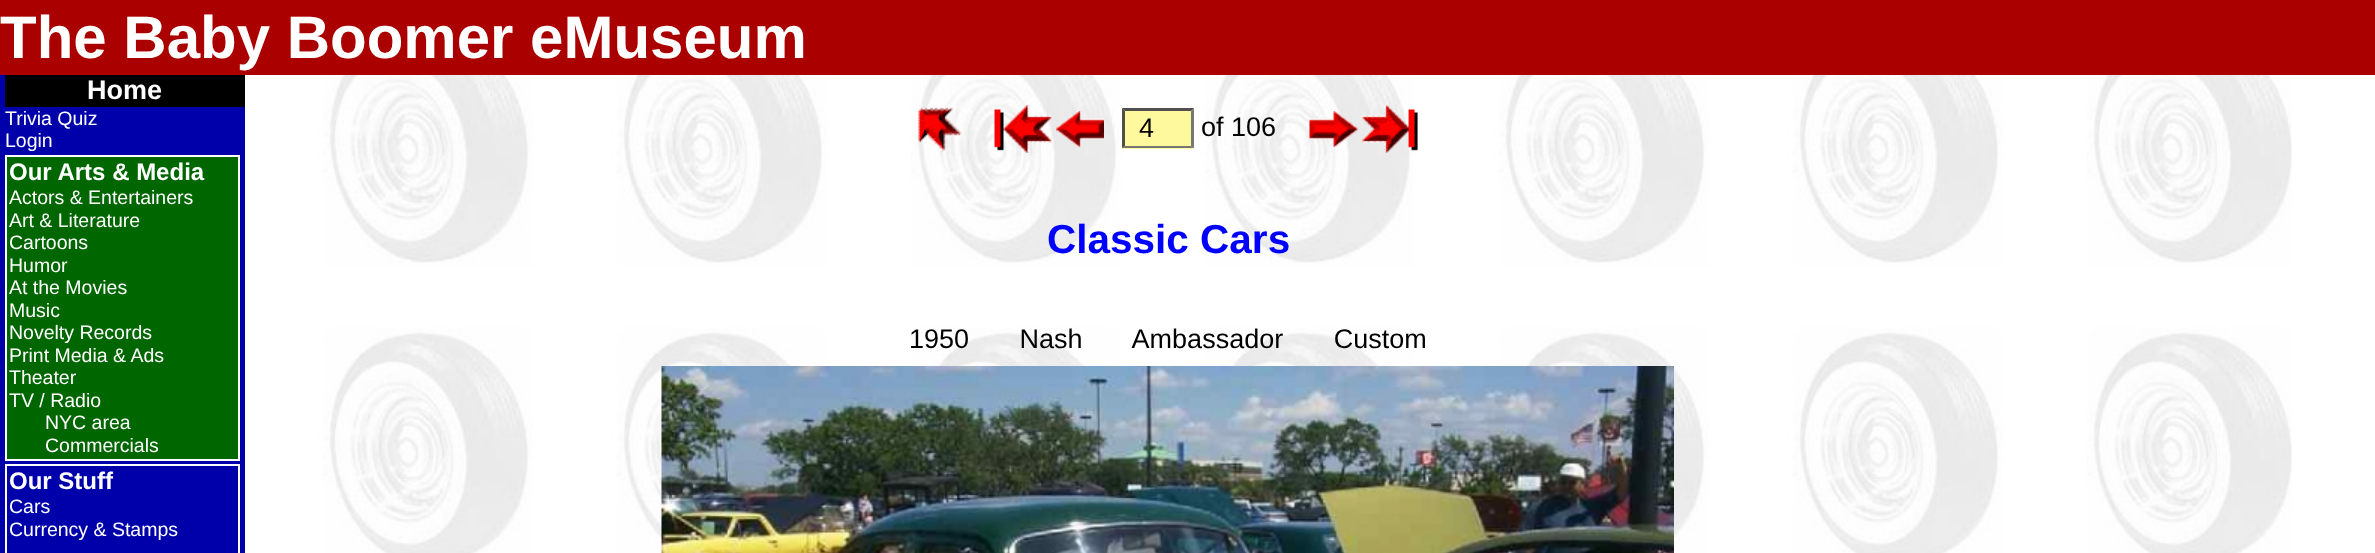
<!DOCTYPE html>
<meta charset="utf-8">
<style>body { margin: 0 } canvas { display: block }</style>
<canvas id="canvas" width="2375" height="553"></canvas>
<script type="module">
  const canvas = document.getElementById("canvas");
  const ctx = canvas.getContext("2d");
  ctx.miterLimit = 4;
  ctx.fontKerning = "normal";
  async function loadImage(src) {
    const img = new Image();
    img.src = src;
    await img.decode();
    return img;
  }

  ctx.fillStyle = "#ffffff";
  ctx.fillRect(0, 0, 2375, 553);
  ctx.drawImage(await loadImage("img1.png"), 245, 75, 2047, 478);
  ctx.fillStyle = "#aa0000";
  ctx.fillRect(0, 0, 2375, 75);
  ctx.font = "bold 60px Liberation Sans";
  ctx.fillStyle = "#ffffff";
  ctx.fillText("The Baby Boomer eMuseum", 0, 58);
  ctx.fillStyle = "#0000aa";
  ctx.fillRect(0, 75, 245, 478);
  ctx.fillStyle = "#000000";
  ctx.fillRect(5, 75, 240, 32);
  ctx.font = "bold 27px Liberation Sans";
  ctx.fillStyle = "#ffffff";
  ctx.fillText("Home", 87, 99);
  ctx.font = "19.5px Liberation Sans";
  ctx.fillText("Trivia Quiz", 5, 125);
  ctx.fillText("Login", 5, 147);
  ctx.fillStyle = "#006600";
  ctx.beginPath();
  ctx.rect(6, 156, 233, 304);
  ctx.fill();
  ctx.strokeStyle = "#ffffff";
  ctx.lineWidth = 2;
  ctx.stroke();
  ctx.font = "bold 24px Liberation Sans";
  ctx.fillStyle = "#ffffff";
  ctx.fillText("Our Arts & Media", 9, 180);
  ctx.font = "19.5px Liberation Sans";
  ctx.fillText("Actors & Entertainers", 9, 204);
  ctx.fillText("Art & Literature", 9, 227);
  ctx.fillText("Cartoons", 9, 249);
  ctx.fillText("Humor", 9, 272);
  ctx.fillText("At the Movies", 9, 294);
  ctx.fillText("Music", 9, 317);
  ctx.fillText("Novelty Records", 9, 339);
  ctx.fillText("Print Media & Ads", 9, 362);
  ctx.fillText("Theater", 9, 384);
  ctx.fillText("TV / Radio", 9, 407);
  ctx.fillText("NYC area", 45, 429);
  ctx.fillText("Commercials", 45, 452);
  ctx.strokeRect(6, 465, 233, 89);
  ctx.font = "bold 24px Liberation Sans";
  ctx.fillText("Our Stuff", 9, 489);
  ctx.font = "19.5px Liberation Sans";
  ctx.fillText("Cars", 9, 513);
  ctx.fillText("Currency & Stamps", 9, 536);
  ctx.drawImage(await loadImage("img2.png"), 918, 107, 44, 45);
  ctx.drawImage(await loadImage("img3.png"), 994, 105, 58, 48);
  ctx.drawImage(await loadImage("img4.png"), 1056, 111, 48, 36);
  ctx.fillStyle = "#fff99d";
  ctx.fillRect(1122, 108, 72, 41);
  ctx.fillStyle = "#4f4f4f";
  ctx.beginPath();
  ctx.moveTo(1122, 108);
  ctx.lineTo(1194, 108);
  ctx.lineTo(1191, 111);
  ctx.lineTo(1125, 111);
  ctx.closePath();
  ctx.fill();
  ctx.fillStyle = "#767676";
  ctx.beginPath();
  ctx.moveTo(1194, 108);
  ctx.lineTo(1194, 148);
  ctx.lineTo(1191, 146);
  ctx.lineTo(1191, 111);
  ctx.closePath();
  ctx.fill();
  ctx.beginPath();
  ctx.moveTo(1194, 148);
  ctx.lineTo(1122, 148);
  ctx.lineTo(1125, 146);
  ctx.lineTo(1191, 146);
  ctx.closePath();
  ctx.fill();
  ctx.fillStyle = "#4f4f4f";
  ctx.beginPath();
  ctx.moveTo(1122, 148);
  ctx.lineTo(1122, 108);
  ctx.lineTo(1125, 111);
  ctx.lineTo(1125, 146);
  ctx.closePath();
  ctx.fill();
  ctx.font = "27px Liberation Sans";
  ctx.fillStyle = "#000000";
  ctx.fillText("4", 1139, 137);
  ctx.fillText("of 106", 1201, 136);
  ctx.drawImage(await loadImage("img5.png"), 1309, 111, 49, 36);
  ctx.drawImage(await loadImage("img6.png"), 1362, 105, 56, 48);
  ctx.font = "bold 40.5px Liberation Sans";
  ctx.fillStyle = "#0000ff";
  ctx.fillText("Classic Cars", 1047, 253);
  ctx.wordSpacing = "43px";
  ctx.font = "27px Liberation Sans";
  ctx.fillStyle = "#000000";
  ctx.fillText("1950 Nash Ambassador Custom", 909, 348);
  ctx.drawImage(await loadImage("img7.png"), 661, 366, 1013, 187);
</script>
